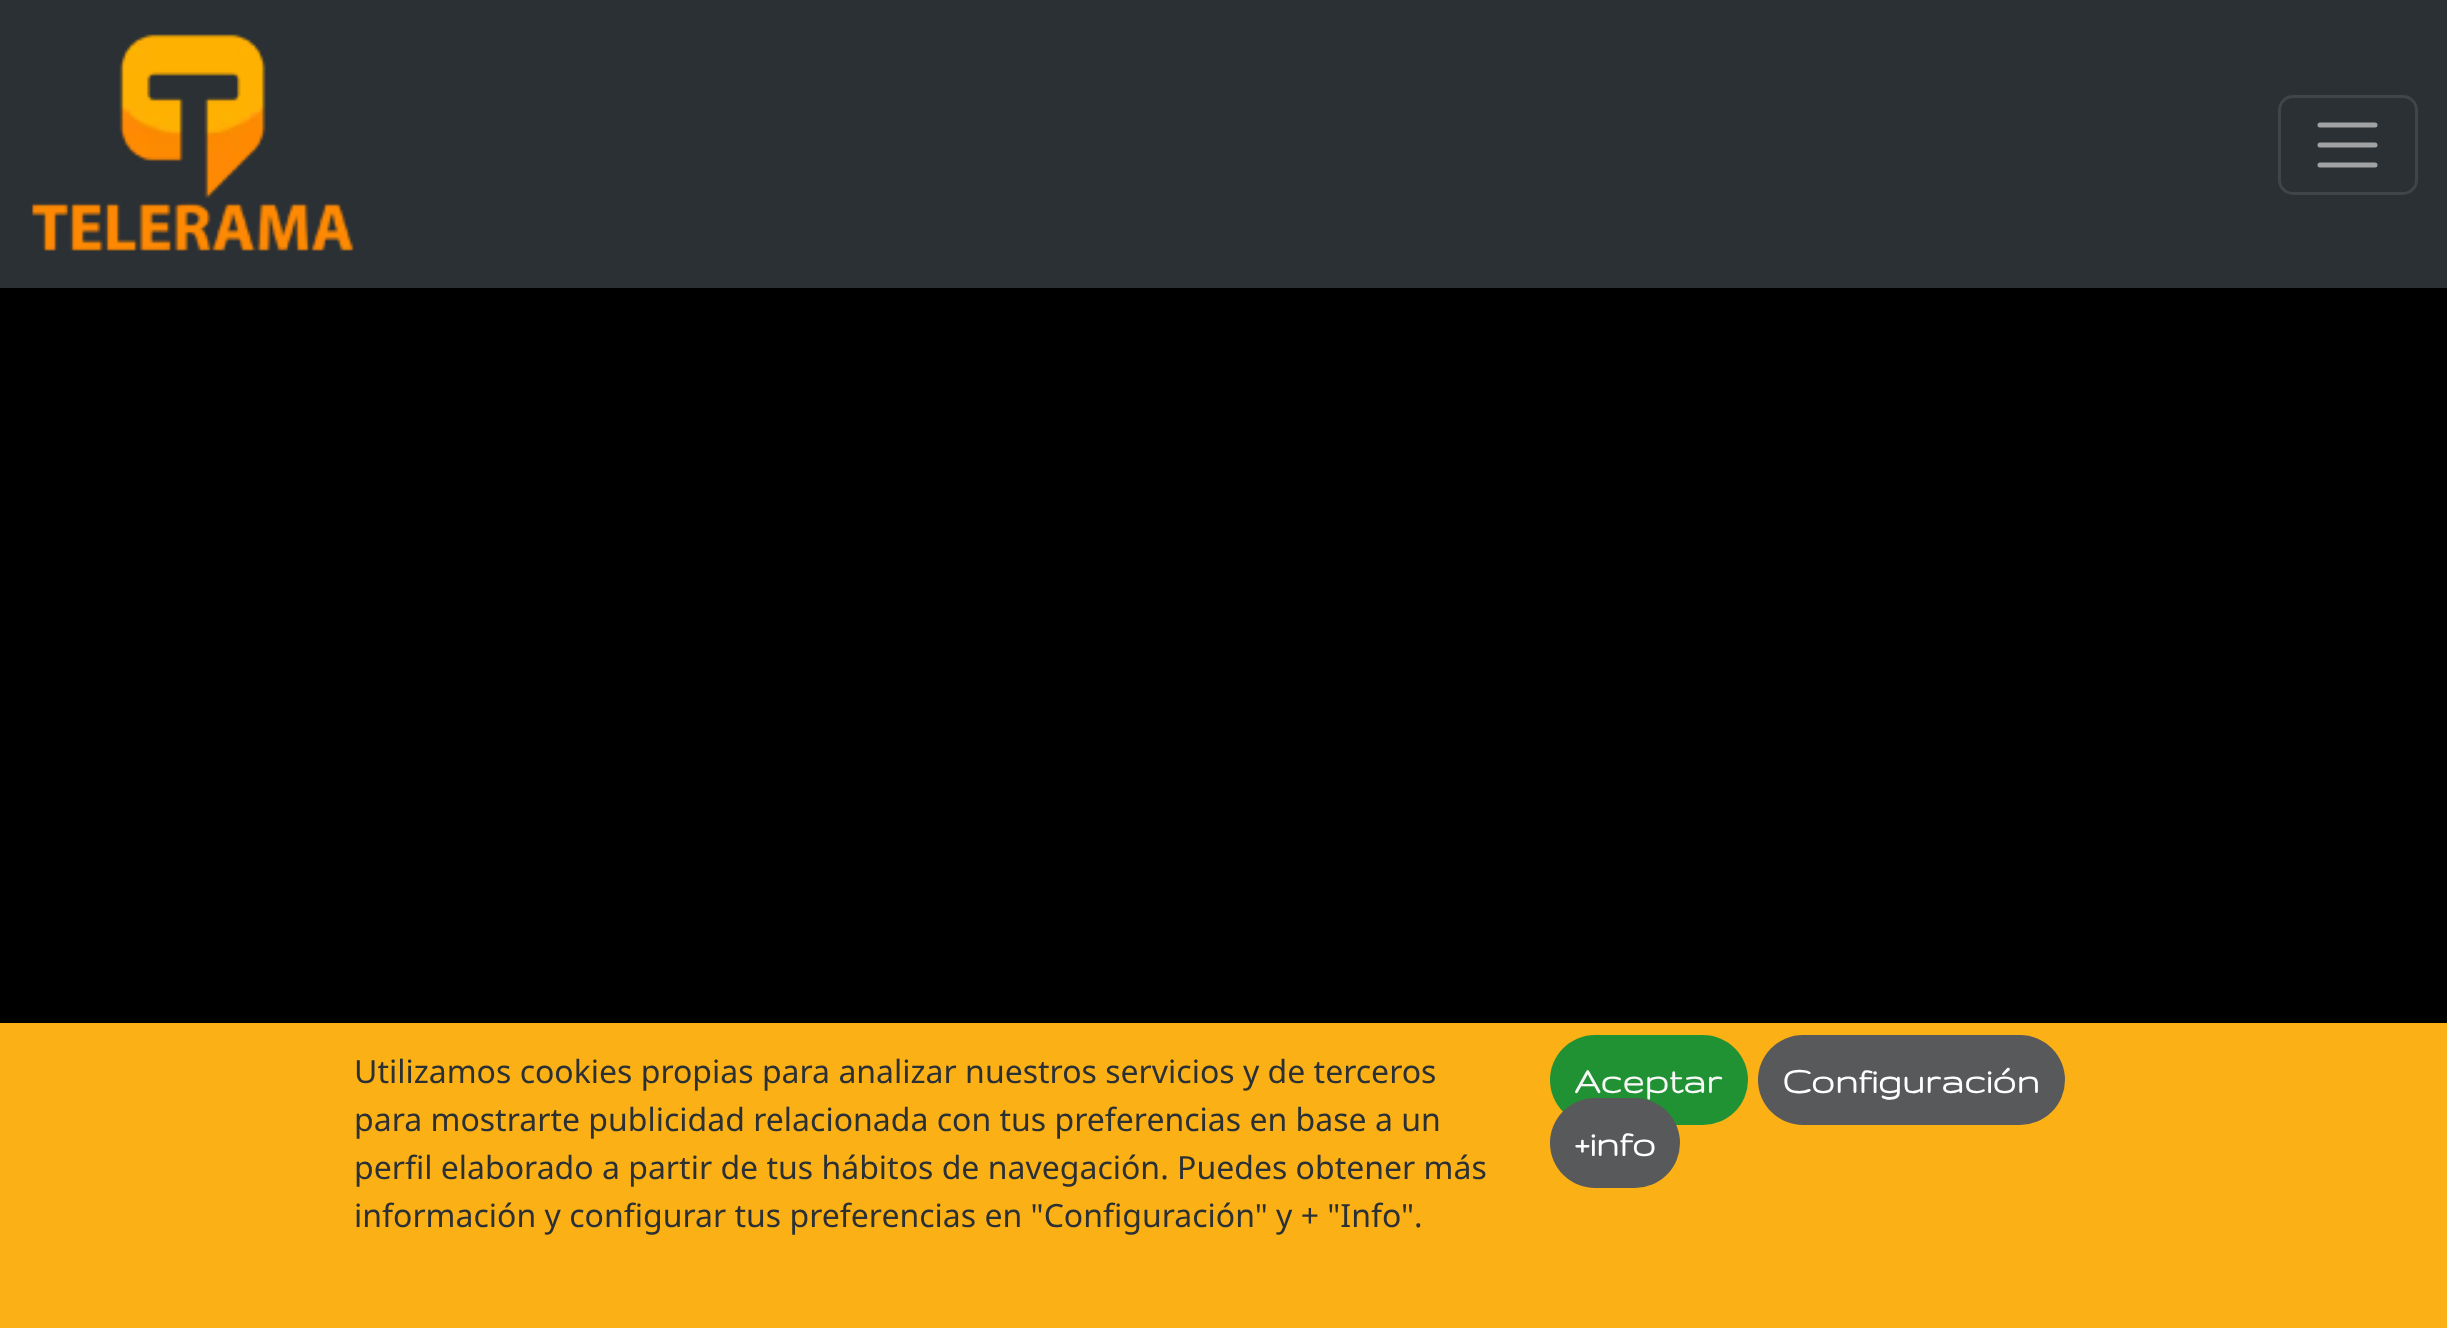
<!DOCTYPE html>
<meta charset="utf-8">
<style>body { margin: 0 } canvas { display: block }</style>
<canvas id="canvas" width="2447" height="1328"></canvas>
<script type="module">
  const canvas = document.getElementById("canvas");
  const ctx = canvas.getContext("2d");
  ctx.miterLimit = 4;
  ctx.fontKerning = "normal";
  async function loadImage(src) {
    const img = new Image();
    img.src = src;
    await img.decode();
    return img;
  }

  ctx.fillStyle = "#000000";
  ctx.fillRect(0, 0, 2447, 1328);
  ctx.fillStyle = "#2b3035";
  ctx.fillRect(0, 0, 2447, 288);
  ctx.drawImage(await loadImage("img1.png"), 31, 34, 323, 217);
  ctx.beginPath();
  ctx.roundRect(2279.5, 96.5, 137, 97, 13.5);
  ctx.strokeStyle = "#404549";
  ctx.lineWidth = 3;
  ctx.stroke();
  ctx.beginPath();
  ctx.moveTo(2320, 125);
  ctx.lineTo(2375, 125);
  ctx.moveTo(2320, 145);
  ctx.lineTo(2375, 145);
  ctx.moveTo(2320, 165);
  ctx.lineTo(2375, 165);
  ctx.strokeStyle = "#a0a2a4";
  ctx.lineWidth = 5;
  ctx.lineCap = "round";
  ctx.stroke();
  ctx.fillStyle = "#fbb116";
  ctx.fillRect(0, 1023, 2447, 305);
  ctx.font = "32px Noto Sans";
  ctx.fillStyle = "#2b3035";
  ctx.fillText("Utilizamos cookies propias para analizar nuestros servicios y de terceros", 354, 1083);
  ctx.fillText("para mostrarte publicidad relacionada con tus preferencias en base a un", 354, 1131);
  ctx.fillText("perfil elaborado a partir de tus hábitos de navegación. Puedes obtener más", 354, 1179);
  ctx.fillText("información y configurar tus preferencias en \"Configuración\" y + \"Info\".", 354, 1227);
  ctx.fillStyle = "#219234";
  ctx.beginPath();
  ctx.roundRect(1550, 1035, 198, 90, 45);
  ctx.fill();
  ctx.font = "bold 40px Gruppo";
  ctx.fillStyle = "#f8f8f8";
  ctx.fillText("Aceptar", 1574, 1093);
  ctx.fillStyle = "#58595b";
  ctx.beginPath();
  ctx.roundRect(1758, 1035, 307, 90, 45);
  ctx.fill();
  ctx.fillStyle = "#ffffff";
  ctx.fillText("Configuración", 1782, 1093);
  ctx.fillStyle = "#58595b";
  ctx.beginPath();
  ctx.roundRect(1550, 1098, 130, 90, 45);
  ctx.fill();
  ctx.fillStyle = "#ffffff";
  ctx.fillText("+info", 1574, 1156);
</script>
